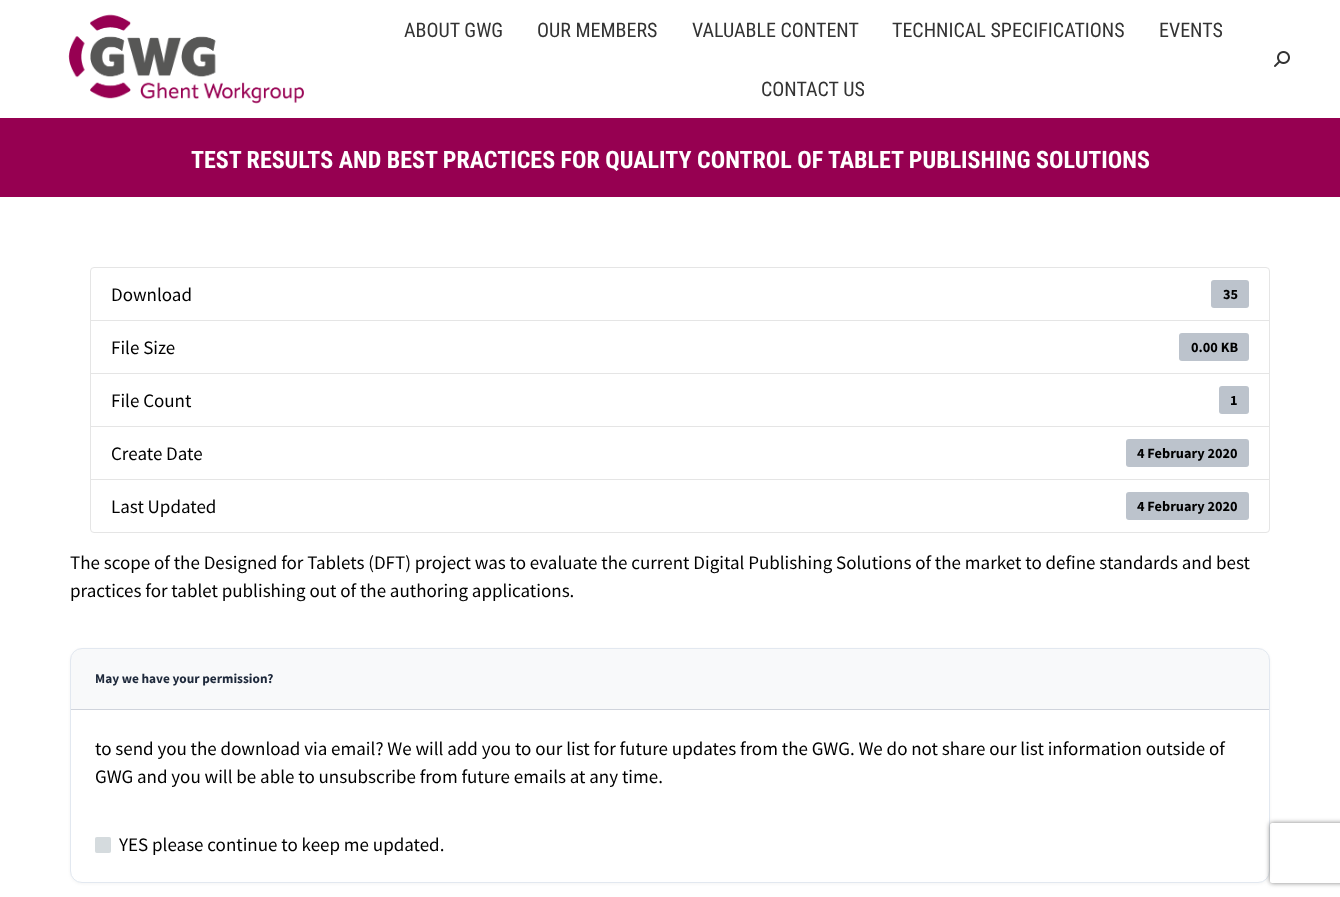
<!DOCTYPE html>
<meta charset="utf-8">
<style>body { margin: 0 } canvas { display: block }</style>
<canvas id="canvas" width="1340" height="897"></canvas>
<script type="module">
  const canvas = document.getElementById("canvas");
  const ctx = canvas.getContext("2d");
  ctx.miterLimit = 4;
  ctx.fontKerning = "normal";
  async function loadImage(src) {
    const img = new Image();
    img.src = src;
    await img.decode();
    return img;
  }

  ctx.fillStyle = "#ffffff";
  ctx.fillRect(0, 0, 1340, 897);
  ctx.drawImage(await loadImage("img1.png"), 68, 14, 236, 90);
  ctx.font = "20px Roboto Condensed";
  ctx.fillStyle = "#333333";
  ctx.fillText("ABOUT GWG", 404, 37);
  ctx.fillText("OUR MEMBERS", 537, 37);
  ctx.fillText("VALUABLE CONTENT", 692, 37);
  ctx.fillText("TECHNICAL SPECIFICATIONS", 892, 37);
  ctx.fillText("EVENTS", 1159, 37);
  ctx.fillText("CONTACT US", 761, 96);
  ctx.drawImage(await loadImage("img2.png"), 1274, 51, 16, 16);
  ctx.fillStyle = "#960051";
  ctx.fillRect(0, 118, 1340, 79);
  ctx.font = "bold 24px Roboto Condensed";
  ctx.fillStyle = "#ffffff";
  ctx.fillText("TEST RESULTS AND BEST PRACTICES FOR QUALITY CONTROL OF TABLET PUBLISHING SOLUTIONS", 191, 168);
  ctx.beginPath();
  ctx.roundRect(90.5, 267.5, 1179, 53, [3.5, 3.5, 0, 0]);
  ctx.strokeStyle = "#e5e5e5";
  ctx.stroke();
  ctx.font = "19px Source Sans Pro";
  ctx.fillStyle = "#000000";
  ctx.fillText("Download", 111, 301);
  ctx.fillStyle = "#bcc3cc";
  ctx.beginPath();
  ctx.roundRect(1211, 280, 38, 28, 3);
  ctx.fill();
  ctx.font = "bold 14.25px Source Sans Pro";
  ctx.fillStyle = "#000000";
  ctx.fillText("35", 1223, 299);
  ctx.strokeRect(90.5, 320.5, 1179, 53);
  ctx.font = "19px Source Sans Pro";
  ctx.fillText("File Size", 111, 354);
  ctx.fillStyle = "#bcc3cc";
  ctx.beginPath();
  ctx.roundRect(1179, 333, 70, 28, 3);
  ctx.fill();
  ctx.font = "bold 14.25px Source Sans Pro";
  ctx.fillStyle = "#000000";
  ctx.fillText("0.00 KB", 1191, 352);
  ctx.strokeRect(90.5, 373.5, 1179, 53);
  ctx.font = "19px Source Sans Pro";
  ctx.fillText("File Count", 111, 407);
  ctx.fillStyle = "#bcc3cc";
  ctx.beginPath();
  ctx.roundRect(1219, 386, 30, 28, 3);
  ctx.fill();
  ctx.font = "bold 14.25px Source Sans Pro";
  ctx.fillStyle = "#000000";
  ctx.fillText("1", 1230, 405);
  ctx.strokeRect(90.5, 426.5, 1179, 53);
  ctx.font = "19px Source Sans Pro";
  ctx.fillText("Create Date", 111, 460);
  ctx.fillStyle = "#bcc3cc";
  ctx.beginPath();
  ctx.roundRect(1126, 439, 123, 28, 3);
  ctx.fill();
  ctx.font = "bold 14.25px Source Sans Pro";
  ctx.fillStyle = "#000000";
  ctx.fillText("4 February 2020", 1137, 458);
  ctx.fillStyle = "#ffffff";
  ctx.beginPath();
  ctx.roundRect(90.5, 479.5, 1179, 53, [0, 0, 3.5, 3.5]);
  ctx.fill();
  ctx.stroke();
  ctx.font = "19px Source Sans Pro";
  ctx.fillStyle = "#000000";
  ctx.fillText("Last Updated", 111, 513);
  ctx.fillStyle = "#bcc3cc";
  ctx.beginPath();
  ctx.roundRect(1126, 492, 123, 28, 3);
  ctx.fill();
  ctx.font = "bold 14.25px Source Sans Pro";
  ctx.fillStyle = "#000000";
  ctx.fillText("4 February 2020", 1137, 511);
  ctx.font = "19px Source Sans Pro";
  ctx.fillText("The scope of the Designed for Tablets (DFT) project was to evaluate the current Digital Publishing Solutions of the market to define standards and best", 70, 569);
  ctx.fillText("practices for tablet publishing out of the authoring applications.", 70, 597);
  ctx.fillStyle = "rgba(0, 0, 0, 0.04)";
  ctx.filter = "blur(1.5px)";
  ctx.beginPath();
  ctx.roundRect(70, 649, 1200, 235, 12);
  ctx.fill();
  ctx.filter = "none";
  ctx.fillStyle = "#ffffff";
  ctx.beginPath();
  ctx.roundRect(70.5, 648.5, 1199, 234, 11.5);
  ctx.fill();
  ctx.strokeStyle = "#e2e8f0";
  ctx.stroke();
  ctx.fillStyle = "rgba(203, 208, 214, 0.13)";
  ctx.beginPath();
  ctx.roundRect(71, 649, 1198, 61, [11, 11, 0, 0]);
  ctx.fill();
  ctx.fillStyle = "#d0d4dc";
  ctx.fillRect(71, 709, 1198, 1);
  ctx.font = "bold 13.3px Source Sans Pro";
  ctx.fillStyle = "#1e293b";
  ctx.fillText("May we have your permission?", 95, 683);
  ctx.font = "19px Source Sans Pro";
  ctx.fillStyle = "#000000";
  ctx.fillText("to send you the download via email? We will add you to our list for future updates from the GWG. We do not share our list information outside of", 95, 755);
  ctx.fillText("GWG and you will be able to unsubscribe from future emails at any time.", 95, 783);
  ctx.fillStyle = "#d5dbde";
  ctx.beginPath();
  ctx.roundRect(95.5, 837.5, 15, 15, 1);
  ctx.fill();
  ctx.strokeStyle = "#d5dbde";
  ctx.stroke();
  ctx.fillStyle = "#000000";
  ctx.fillText("YES please continue to keep me updated.", 119, 851);
  ctx.save();
  ctx.beginPath();
  ctx.moveTo(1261, 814);
  ctx.lineTo(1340, 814);
  ctx.lineTo(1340, 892);
  ctx.lineTo(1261, 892);
  ctx.closePath();
  ctx.moveTo(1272, 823);
  ctx.lineTo(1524, 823);
  ctx.bezierCurveTo(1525, 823, 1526, 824, 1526, 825);
  ctx.lineTo(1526, 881);
  ctx.bezierCurveTo(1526, 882, 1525, 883, 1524, 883);
  ctx.lineTo(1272, 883);
  ctx.bezierCurveTo(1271, 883, 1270, 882, 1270, 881);
  ctx.lineTo(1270, 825);
  ctx.bezierCurveTo(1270, 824, 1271, 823, 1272, 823);
  ctx.closePath();
  ctx.clip("evenodd");
  ctx.fillStyle = "#808080";
  ctx.filter = "blur(2.5px)";
  ctx.beginPath();
  ctx.roundRect(1270, 823, 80, 60, 2);
  ctx.fill();
  ctx.filter = "none";
  ctx.restore();
</script>
